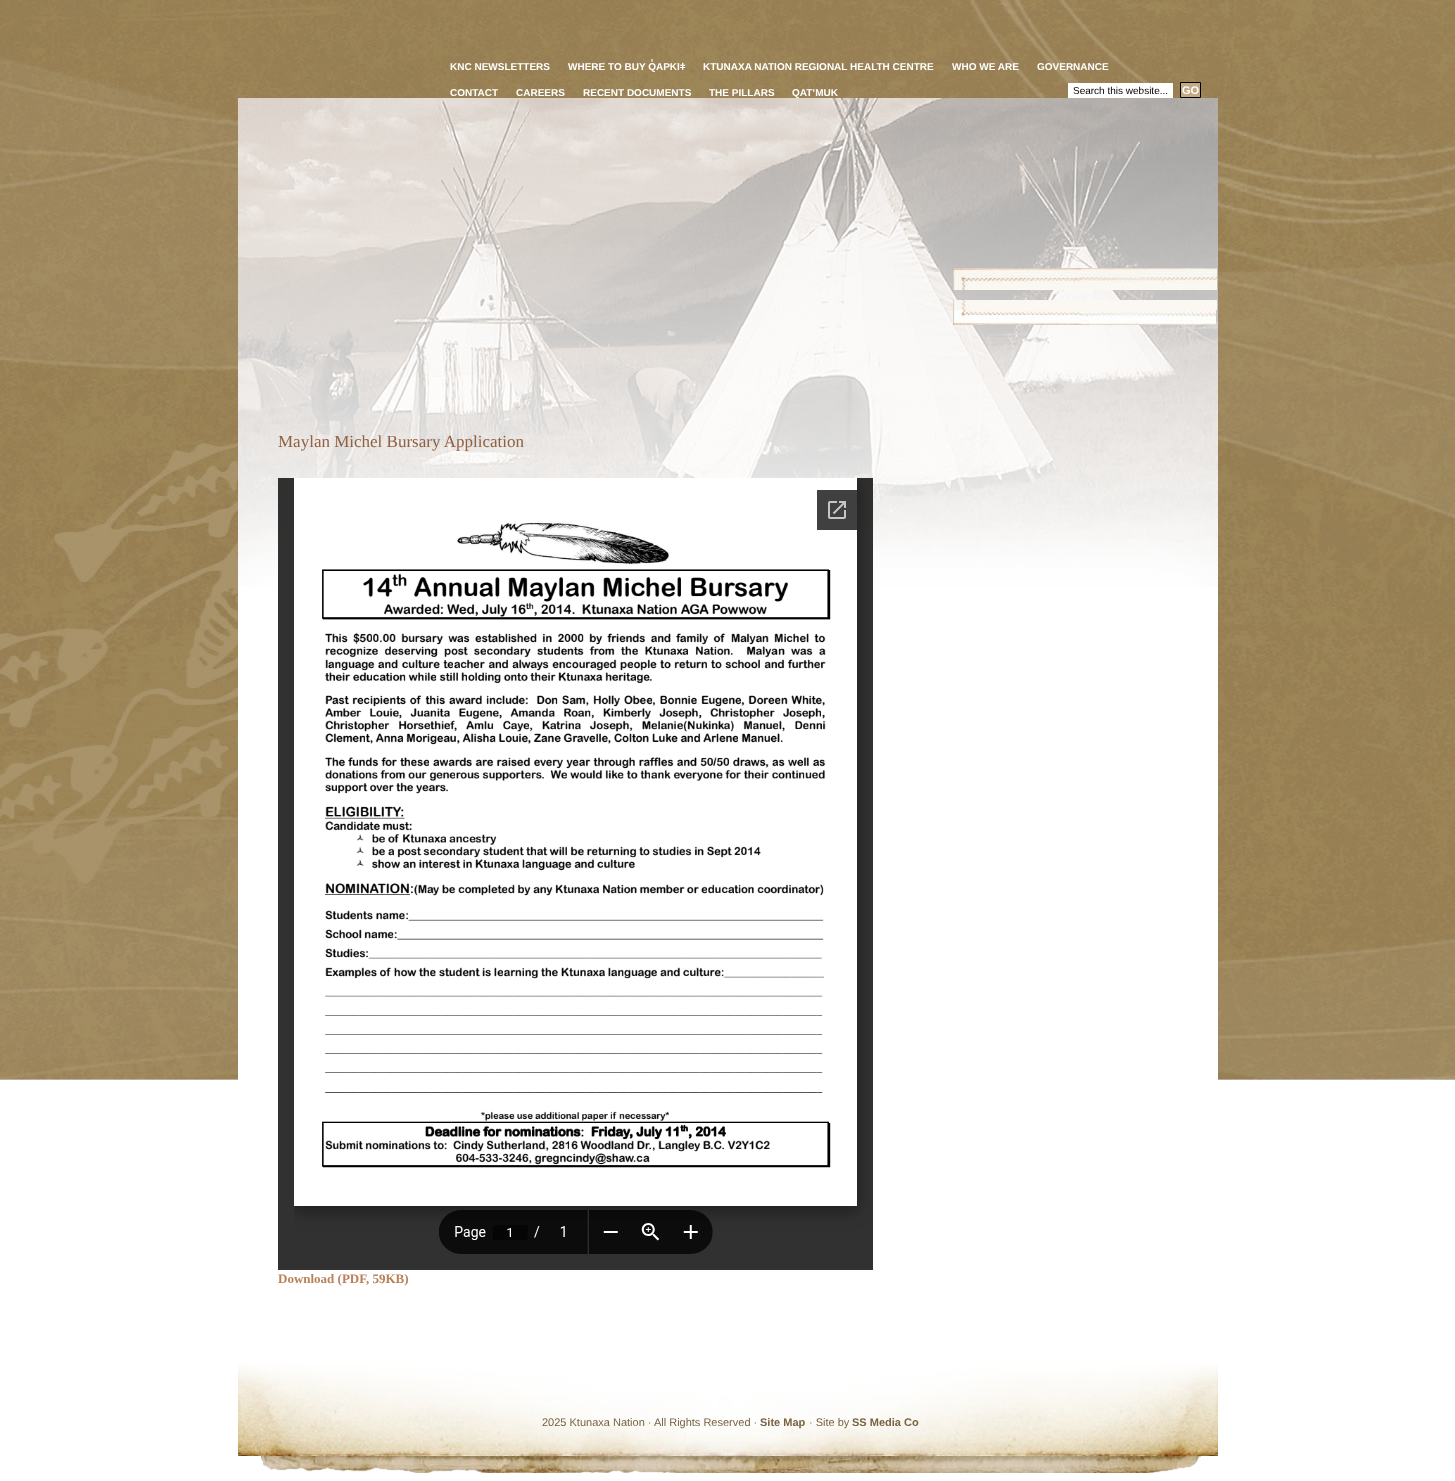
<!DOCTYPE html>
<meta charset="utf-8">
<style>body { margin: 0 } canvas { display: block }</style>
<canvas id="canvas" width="1455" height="1481"></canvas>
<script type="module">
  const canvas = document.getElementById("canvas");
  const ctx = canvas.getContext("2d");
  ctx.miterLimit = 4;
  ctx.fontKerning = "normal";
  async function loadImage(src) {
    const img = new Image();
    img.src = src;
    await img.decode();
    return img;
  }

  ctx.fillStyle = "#ffffff";
  ctx.fillRect(0, 0, 1455, 1481);
  ctx.drawImage(await loadImage("img1.png"), 0, 0, 1455, 1080);
  ctx.font = "bold 10px Liberation Sans";
  ctx.fillText("KNC NEWSLETTERS", 450, 70);
  ctx.fillText("WHERE TO BUY Q̓APKIǂ", 568, 70);
  ctx.fillText("KTUNAXA NATION REGIONAL HEALTH CENTRE", 703, 70);
  ctx.fillText("WHO WE ARE", 952, 70);
  ctx.fillText("GOVERNANCE", 1037, 70);
  ctx.fillText("CONTACT", 450, 96);
  ctx.fillText("CAREERS", 516, 96);
  ctx.fillText("RECENT DOCUMENTS", 583, 96);
  ctx.fillText("THE PILLARS", 709, 96);
  ctx.fillText("QAT’MUK", 792, 96);
  ctx.fillRect(1068, 83, 105, 15);
  ctx.font = "10px Liberation Sans";
  ctx.fillStyle = "#000000";
  ctx.fillText("Search this website...", 1073, 94);
  ctx.fillStyle = "#c4a985";
  ctx.beginPath();
  ctx.rect(1180.5, 82.5, 20, 15);
  ctx.fill();
  ctx.strokeStyle = "#000000";
  ctx.stroke();
  ctx.font = "bold 11px Liberation Sans";
  ctx.fillStyle = "#ffffff";
  ctx.fillText("GO", 1182, 94);
  ctx.fillRect(238, 587, 980, 493);
  ctx.drawImage(await loadImage("img2.png"), 238, 98, 980, 489);
  ctx.drawImage(await loadImage("img3.png"), 953, 268, 264, 22);
  ctx.drawImage(await loadImage("img4.png"), 953, 300, 264, 10);
  ctx.drawImage(await loadImage("img5.png"), 953, 310, 263, 15);
  ctx.font = "17px Liberation Serif";
  ctx.fillStyle = "#916041";
  ctx.fillText("Maylan Michel Bursary Application", 278, 447);
  ctx.drawImage(await loadImage("img6.png"), 278, 478, 595, 792);
  ctx.font = "bold 13px Liberation Serif";
  ctx.fillStyle = "#b88158";
  ctx.fillText("Download (PDF, 59KB)", 278, 1283);
  ctx.drawImage(await loadImage("img7.png"), 238, 1364, 980, 109);
  ctx.drawImage(await loadImage("img8.png"), 238, 1443, 980, 30);
  ctx.font = "11px Liberation Sans";
  ctx.fillStyle = "#786241";
  ctx.fillText("2025 Ktunaxa Nation · All Rights Reserved ·", 542, 1426);
  ctx.font = "bold 11px Liberation Sans";
  ctx.fillText("Site Map", 760, 1426);
  ctx.font = "11px Liberation Sans";
  ctx.fillText("· Site by", 809, 1426);
  ctx.font = "bold 11px Liberation Sans";
  ctx.fillText("SS Media Co", 852, 1426);
</script>
